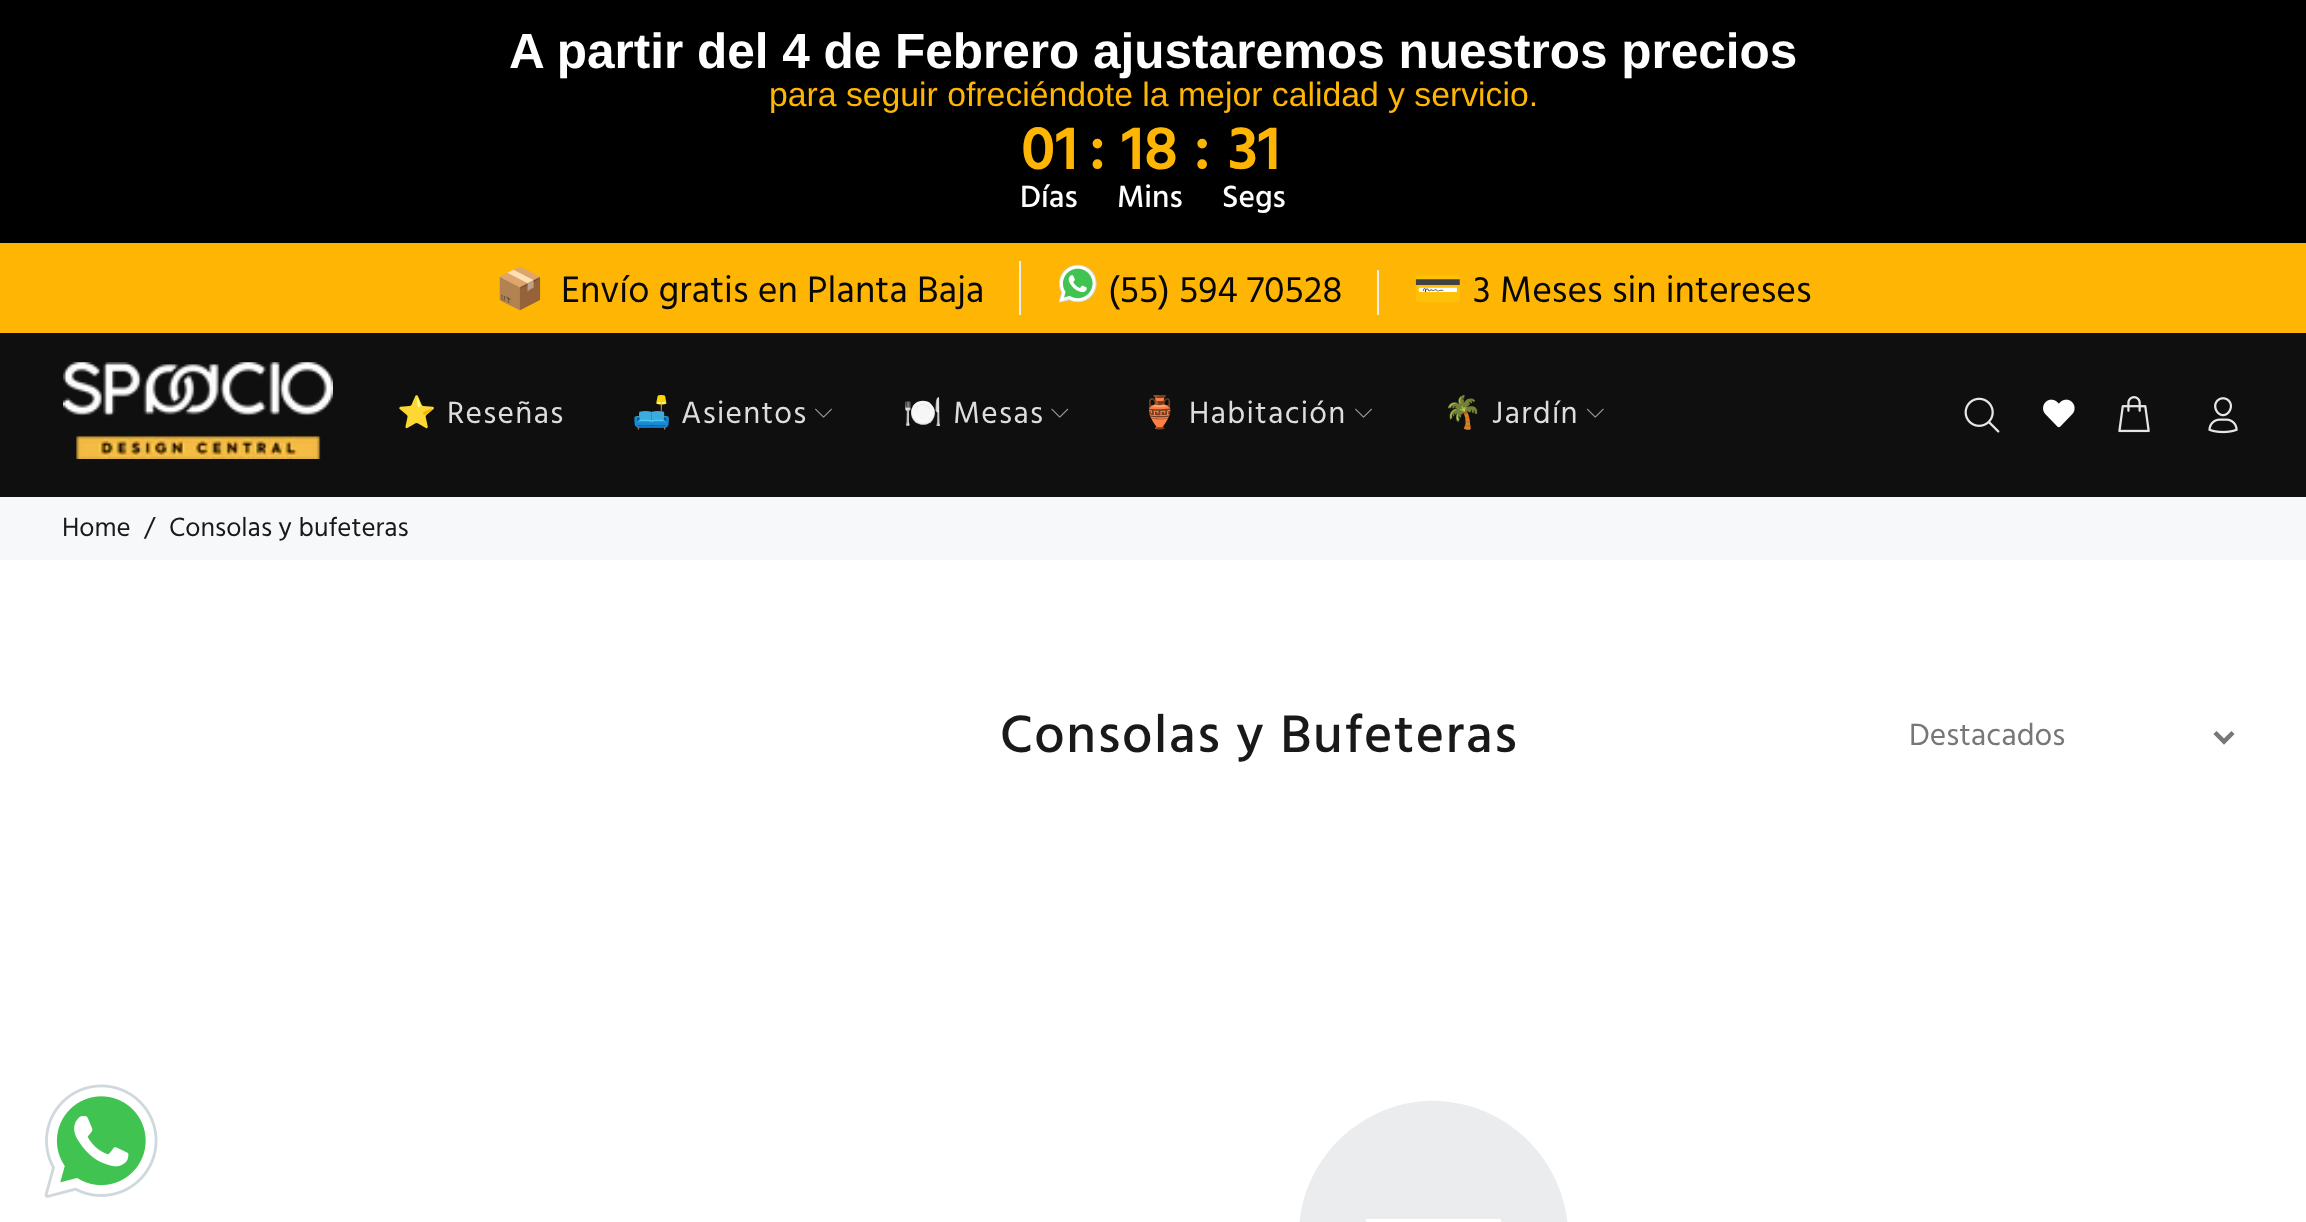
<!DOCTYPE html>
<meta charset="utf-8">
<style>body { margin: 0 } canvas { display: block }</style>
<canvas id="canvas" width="2306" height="1222"></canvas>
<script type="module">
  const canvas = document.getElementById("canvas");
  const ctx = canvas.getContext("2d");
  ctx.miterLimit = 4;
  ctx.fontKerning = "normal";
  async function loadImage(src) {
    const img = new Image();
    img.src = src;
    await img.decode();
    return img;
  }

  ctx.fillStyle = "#ffffff";
  ctx.fillRect(0, 0, 2306, 1222);
  ctx.fillStyle = "#000000";
  ctx.fillRect(0, 0, 2306, 243);
  ctx.font = "bold 49.5px Liberation Sans";
  ctx.fillStyle = "#ffffff";
  ctx.fillText("A partir del 4 de Febrero ajustaremos nuestros precios", 509, 68);
  ctx.font = "33.75px Liberation Sans";
  ctx.fillStyle = "#ffb503";
  ctx.fillText("para seguir ofreciéndote la mejor calidad y servicio.", 769, 106);
  ctx.font = "600 63px Hind";
  ctx.fillText("01", 1021, 169);
  ctx.font = "500 31.5px Hind";
  ctx.fillStyle = "#ffffff";
  ctx.fillText("Días", 1020, 207);
  ctx.font = "600 63px Hind";
  ctx.fillStyle = "#ffb503";
  ctx.fillText(": 18 :", 1089, 169);
  ctx.fillText("31", 1228, 169);
  ctx.font = "500 31.5px Hind";
  ctx.fillStyle = "#ffffff";
  ctx.fillText("Segs", 1222, 207);
  ctx.fillText("Mins", 1117, 207);
  ctx.fillStyle = "#ffb503";
  ctx.fillRect(0, 243, 2306, 90);
  ctx.font = "40px Noto Color Emoji";
  ctx.fillStyle = "#070707";
  ctx.fillText("📦", 495, 302);
  ctx.font = "37.75px Hind";
  ctx.fillText("Envío gratis en Planta Baja", 561, 302);
  ctx.fillStyle = "#eeeeee";
  ctx.fillRect(1019, 261, 2, 54);
  ctx.drawImage(await loadImage("img1.png"), 1058, 264, 39, 39);
  ctx.fillStyle = "#070707";
  ctx.fillText("(55) 594 70528", 1108, 302);
  ctx.fillStyle = "#eeeeee";
  ctx.fillRect(1377, 270, 2, 45);
  ctx.font = "40px Noto Color Emoji";
  ctx.fillStyle = "#070707";
  ctx.fillText("💳", 1413, 302);
  ctx.font = "37.75px Hind";
  ctx.fillText("3 Meses sin intereses", 1473, 302);
  ctx.fillStyle = "#0f0f0f";
  ctx.fillRect(0, 333, 2306, 164);
  ctx.drawImage(await loadImage("img2.png"), 63, 362, 270, 97);
  ctx.letterSpacing = "1.25px";
  ctx.font = "31.5px Noto Color Emoji";
  ctx.fillStyle = "#dddddd";
  ctx.fillText("⭐", 397, 423);
  ctx.font = "31.5px Hind";
  ctx.fillText("Reseñas", 447, 423);
  ctx.font = "31.5px Noto Color Emoji";
  ctx.fillText("🛋️", 632, 423);
  ctx.font = "31.5px Hind";
  ctx.fillText("Asientos", 681, 423);
  ctx.drawImage(await loadImage("img3.png"), 815, 408, 17, 10);
  ctx.font = "31.5px Noto Color Emoji";
  ctx.fillText("🍽️", 903, 423);
  ctx.font = "31.5px Hind";
  ctx.fillText("Mesas", 953, 423);
  ctx.drawImage(await loadImage("img4.png"), 1051, 408, 18, 10);
  ctx.font = "31.5px Noto Color Emoji";
  ctx.fillText("🏺", 1140, 423);
  ctx.font = "31.5px Hind";
  ctx.fillText("Habitación", 1189, 423);
  ctx.drawImage(await loadImage("img3.png"), 1355, 408, 17, 10);
  ctx.font = "31.5px Noto Color Emoji";
  ctx.fillText("🌴", 1443, 423);
  ctx.font = "31.5px Hind";
  ctx.fillText("Jardín", 1492, 423);
  ctx.drawImage(await loadImage("img5.png"), 1586, 408, 18, 10);
  ctx.drawImage(await loadImage("img6.png"), 1964, 397, 36, 36);
  ctx.drawImage(await loadImage("img7.png"), 2043, 399, 32, 29);
  ctx.drawImage(await loadImage("img8.png"), 2118, 396, 32, 37);
  ctx.drawImage(await loadImage("img9.png"), 2208, 397, 30, 37);
  ctx.fillStyle = "#f7f8fa";
  ctx.fillRect(0, 497, 2306, 63);
  ctx.letterSpacing = "0px";
  ctx.font = "27px Hind";
  ctx.fillStyle = "#191919";
  ctx.fillText("Home", 62, 536);
  ctx.fillText("/", 144, 536);
  ctx.fillText("Consolas y bufeteras", 169, 536);
  ctx.letterSpacing = "1.6px";
  ctx.font = "500 54px Hind";
  ctx.fillText("Consolas y Bufeteras", 1000, 752);
  ctx.beginPath();
  ctx.moveTo(2215, 732.5);
  ctx.lineTo(2224, 741.5);
  ctx.lineTo(2233, 732.5);
  ctx.strokeStyle = "#777777";
  ctx.lineWidth = 4.5;
  ctx.stroke();
  ctx.letterSpacing = "0px";
  ctx.font = "31.5px Hind";
  ctx.fillStyle = "#777777";
  ctx.fillText("Destacados", 1909, 745);
  ctx.fillStyle = "#ebecee";
  ctx.beginPath();
  ctx.moveTo(1486, 1112);
  ctx.bezierCurveTo(1551, 1140, 1585, 1215, 1560, 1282);
  ctx.bezierCurveTo(1555, 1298, 1546, 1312, 1535, 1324);
  ctx.bezierCurveTo(1516, 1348, 1487, 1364, 1457, 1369);
  ctx.bezierCurveTo(1432, 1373, 1405, 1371, 1381, 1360);
  ctx.bezierCurveTo(1354, 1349, 1331, 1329, 1317, 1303);
  ctx.bezierCurveTo(1278, 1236, 1304, 1151, 1372, 1116);
  ctx.bezierCurveTo(1389, 1107, 1407, 1102, 1426, 1101);
  ctx.bezierCurveTo(1447, 1100, 1467, 1104, 1486, 1112);
  ctx.closePath();
  ctx.moveTo(1501, 1219);
  ctx.lineTo(1366, 1219);
  ctx.lineTo(1366, 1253);
  ctx.lineTo(1501, 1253);
  ctx.closePath();
  ctx.fill();
  ctx.drawImage(await loadImage("img10.png"), 44, 1084, 114, 114);
</script>
